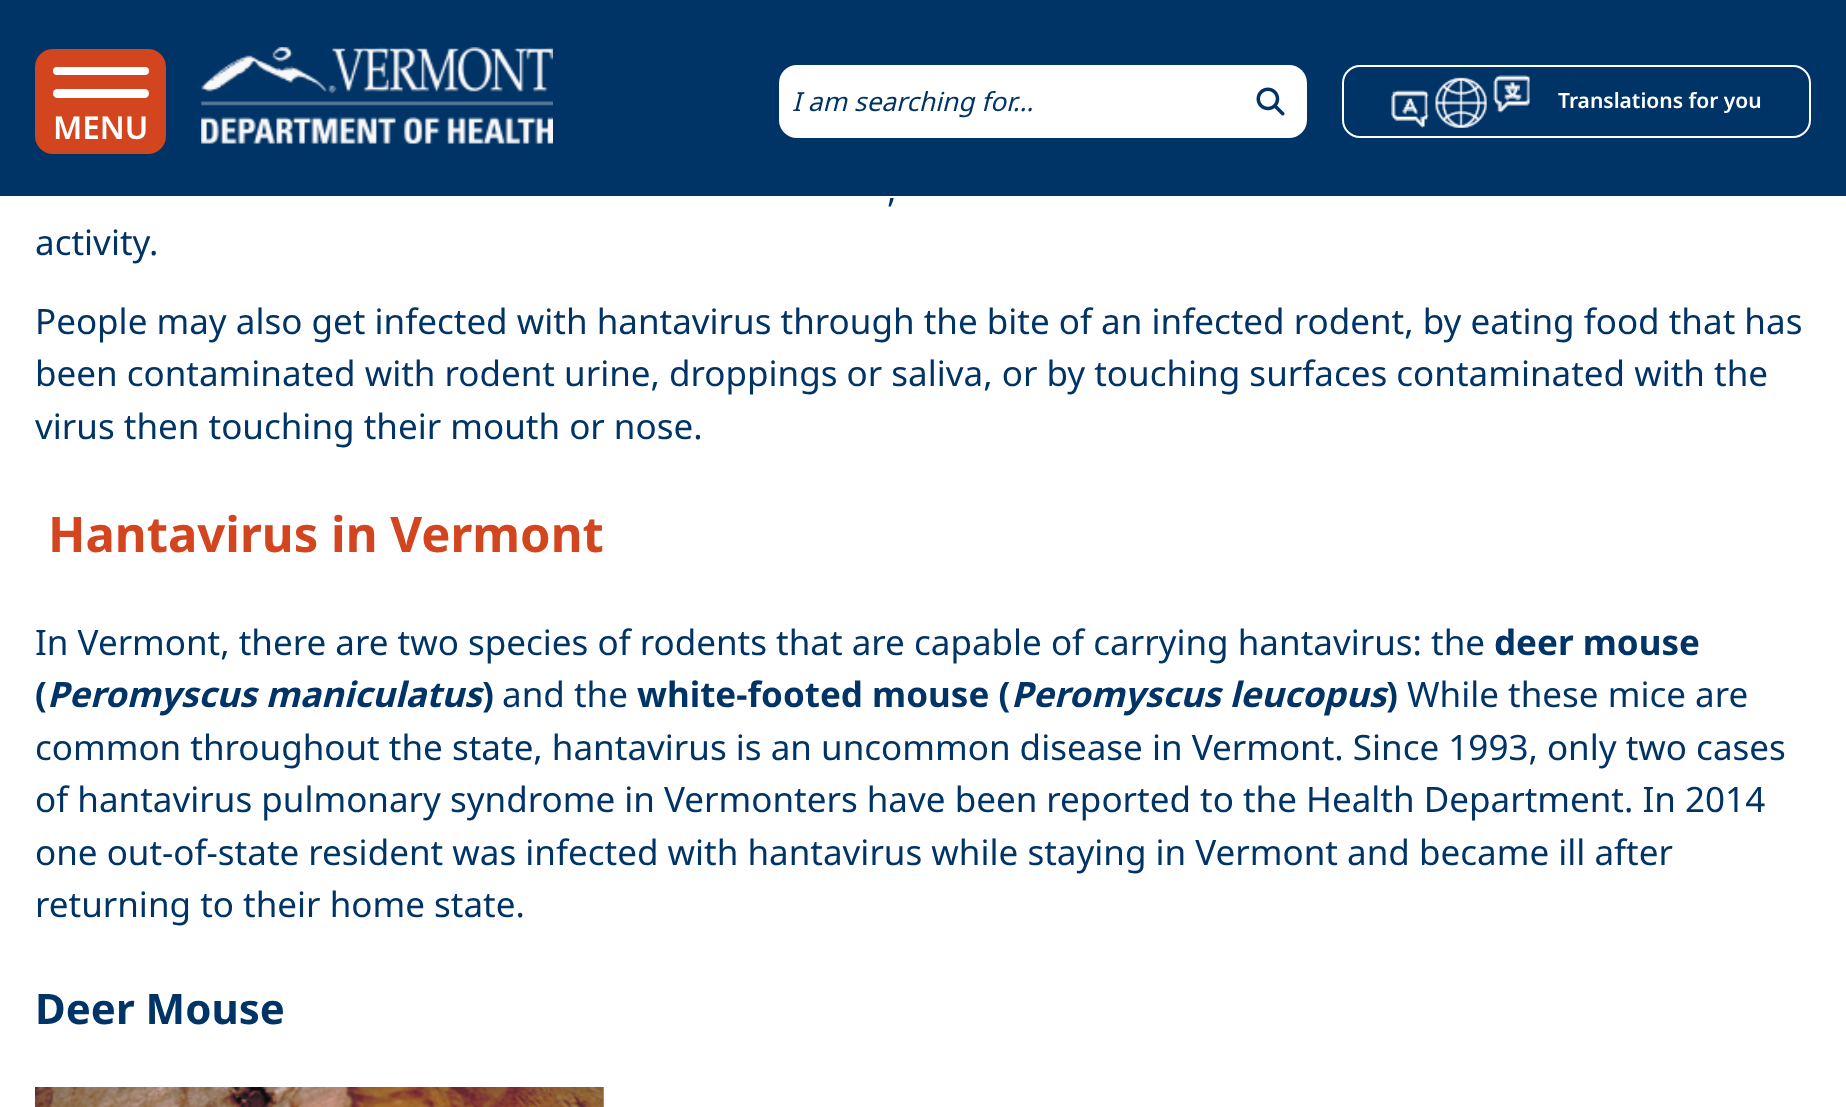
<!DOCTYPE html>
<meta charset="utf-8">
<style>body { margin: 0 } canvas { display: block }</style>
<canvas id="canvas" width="1846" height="1107"></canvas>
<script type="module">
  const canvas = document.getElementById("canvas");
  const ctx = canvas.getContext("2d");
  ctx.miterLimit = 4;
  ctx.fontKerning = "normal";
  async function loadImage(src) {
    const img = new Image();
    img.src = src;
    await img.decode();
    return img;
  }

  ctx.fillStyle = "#ffffff";
  ctx.fillRect(0, 0, 1846, 1107);
  ctx.fillStyle = "#003366";
  ctx.fillRect(0, 0, 1846, 196);
  ctx.drawImage(await loadImage("img1.png"), 201, 47, 352, 97);
  ctx.fillStyle = "#ffffff";
  ctx.beginPath();
  ctx.roundRect(779, 65, 455, 73, [18, 0, 0, 18]);
  ctx.fill();
  ctx.font = "italic 26.25px Noto Sans";
  ctx.fillStyle = "#003366";
  ctx.fillText("I am searching for…", 792, 111);
  ctx.fillStyle = "#ffffff";
  ctx.beginPath();
  ctx.roundRect(1234, 65, 73, 73, [0, 18, 18, 0]);
  ctx.fill();
  ctx.drawImage(await loadImage("img2.png"), 1256, 87, 29, 29);
  ctx.beginPath();
  ctx.roundRect(1343, 66, 467, 71, 17);
  ctx.strokeStyle = "#ffffff";
  ctx.lineWidth = 2;
  ctx.stroke();
  ctx.drawImage(await loadImage("img3.png"), 1391, 75, 139, 53);
  ctx.font = "600 21px Noto Sans";
  ctx.fillText("Translations for you", 1558, 108);
  ctx.fillStyle = "#d2451e";
  ctx.beginPath();
  ctx.roundRect(35, 49, 131, 105, 18);
  ctx.fill();
  ctx.fillStyle = "#ffffff";
  ctx.beginPath();
  ctx.roundRect(53, 67, 96, 8, 4);
  ctx.fill();
  ctx.beginPath();
  ctx.roundRect(53, 89, 96, 9, 4.5);
  ctx.fill();
  ctx.font = "600 31.5px Noto Sans";
  ctx.fillText("MENU", 53, 139);
  ctx.font = "35px Noto Sans";
  ctx.fillStyle = "#003366";
  ctx.fillText(",", 887, 202);
  ctx.fillText("activity.", 35, 255);
  ctx.fillText("People may also get infected with hantavirus through the bite of an infected rodent, by eating food that has", 35, 334);
  ctx.fillText("been contaminated with rodent urine, droppings or saliva, or by touching surfaces contaminated with the", 35, 386);
  ctx.fillText("virus then touching their mouth or nose.", 35, 439);
  ctx.font = "bold 49px Noto Sans";
  ctx.fillStyle = "#d2451e";
  ctx.fillText("Hantavirus in Vermont", 48, 552);
  ctx.font = "35px Noto Sans";
  ctx.fillStyle = "#003366";
  ctx.fillText("In Vermont, there are two species of rodents that are capable of carrying hantavirus: the", 35, 655);
  ctx.font = "bold 35px Noto Sans";
  ctx.fillText("deer mouse", 1494, 655);
  ctx.fillText("(", 35, 707);
  ctx.font = "italic bold 35px Noto Sans";
  ctx.fillText("Peromyscus maniculatus", 47, 707);
  ctx.font = "bold 35px Noto Sans";
  ctx.fillText(")", 482, 707);
  ctx.font = "35px Noto Sans";
  ctx.fillText("and the", 502, 707);
  ctx.font = "bold 35px Noto Sans";
  ctx.fillText("white-footed mouse (", 637, 707);
  ctx.font = "italic bold 35px Noto Sans";
  ctx.fillText("Peromyscus leucopus", 1011, 707);
  ctx.font = "bold 35px Noto Sans";
  ctx.fillText(")", 1386, 707);
  ctx.font = "35px Noto Sans";
  ctx.fillText("While these mice are", 1407, 707);
  ctx.fillText("common throughout the state, hantavirus is an uncommon disease in Vermont. Since 1993, only two cases", 35, 760);
  ctx.fillText("of hantavirus pulmonary syndrome in Vermonters have been reported to the Health Department. In 2014", 35, 812);
  ctx.fillText("one out-of-state resident was infected with hantavirus while staying in Vermont and became ill after", 35, 865);
  ctx.fillText("returning to their home state.", 35, 917);
  ctx.font = "bold 42px Noto Sans";
  ctx.fillText("Deer Mouse", 35, 1024);
  ctx.drawImage(await loadImage("img4.png"), 35, 1087, 569, 20);
</script>
